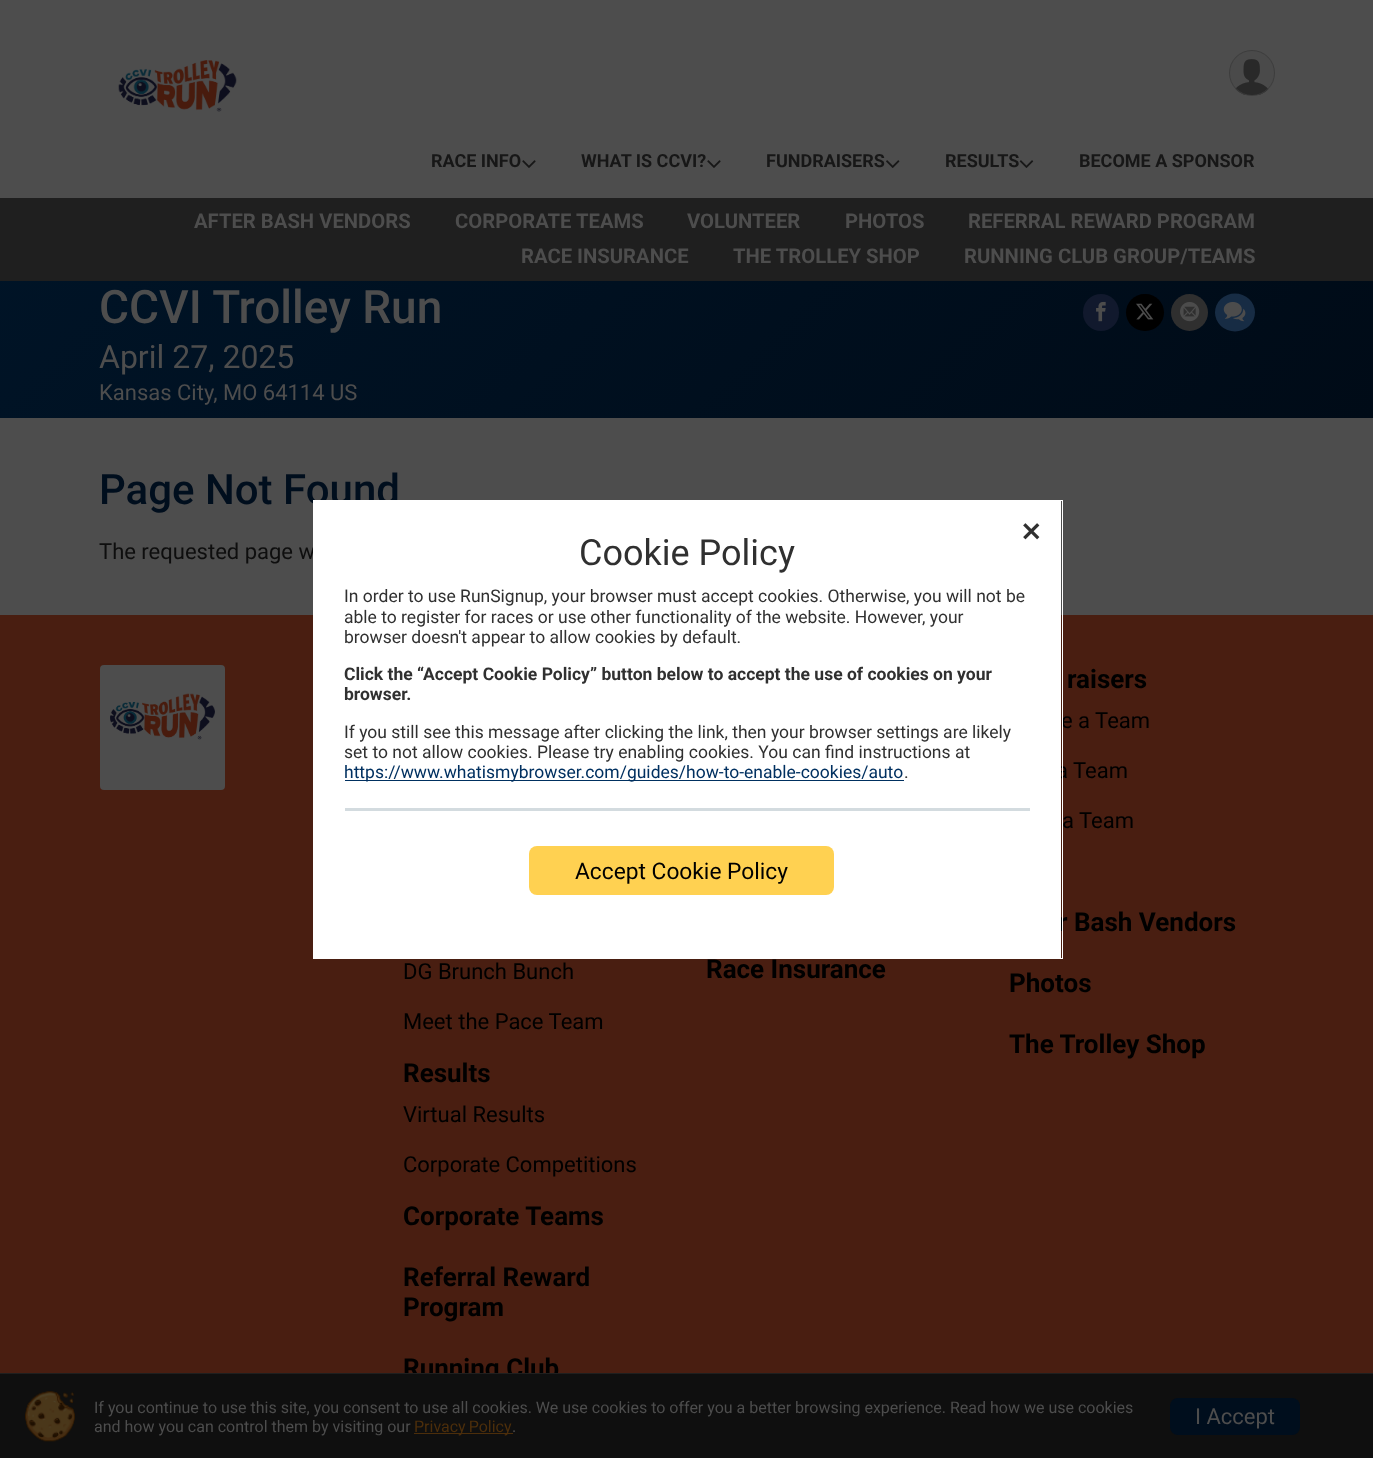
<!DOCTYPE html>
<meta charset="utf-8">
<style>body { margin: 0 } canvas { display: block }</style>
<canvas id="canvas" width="1373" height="1458"></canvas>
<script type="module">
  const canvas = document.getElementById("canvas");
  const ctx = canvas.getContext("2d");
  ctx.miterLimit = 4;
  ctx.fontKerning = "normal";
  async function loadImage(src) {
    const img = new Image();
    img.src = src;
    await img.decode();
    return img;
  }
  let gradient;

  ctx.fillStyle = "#4d4d4d";
  ctx.fillRect(0, 0, 1373, 1458);
  ctx.drawImage(await loadImage("img1.png"), 118, 60, 119, 52);
  ctx.drawImage(await loadImage("img2.png"), 1230, 51, 44, 44);
  ctx.beginPath();
  ctx.arc(1252, 73, 22.5, 0, Math.PI * 2);
  ctx.strokeStyle = "#3d3d3d";
  ctx.stroke();
  ctx.font = "bold 18px Roboto";
  ctx.fillStyle = "#171717";
  ctx.fillText("RACE INFO", 431, 167);
  ctx.drawImage(await loadImage("img3.png"), 522, 160, 14, 8);
  ctx.fillText("WHAT IS CCVI?", 581, 167);
  ctx.drawImage(await loadImage("img3.png"), 707, 160, 14, 8);
  ctx.fillText("FUNDRAISERS", 766, 167);
  ctx.drawImage(await loadImage("img4.png"), 886, 160, 14, 8);
  ctx.fillText("RESULTS", 945, 167);
  ctx.drawImage(await loadImage("img5.png"), 1019, 160, 15, 8);
  ctx.fillText("BECOME A SPONSOR", 1079, 167);
  ctx.fillStyle = "#1f1f1f";
  ctx.fillRect(0, 198, 1373, 83);
  ctx.font = "bold 20.25px Roboto";
  ctx.fillStyle = "#4d4d4d";
  ctx.fillText("AFTER BASH VENDORS", 194, 228);
  ctx.fillText("CORPORATE TEAMS", 455, 228);
  ctx.fillText("VOLUNTEER", 687, 228);
  ctx.fillText("PHOTOS", 845, 228);
  ctx.fillText("REFERRAL REWARD PROGRAM", 968, 228);
  ctx.fillText("RACE INSURANCE", 521, 263);
  ctx.fillText("THE TROLLEY SHOP", 733, 263);
  ctx.fillText("RUNNING CLUB GROUP/TEAMS", 964, 263);
  gradient = ctx.createLinearGradient(1082, 709, 292, -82);
  gradient.addColorStop(0, "#000b17");
  gradient.addColorStop(1, "#001427");
  ctx.fillStyle = gradient;
  ctx.fillRect(0, 281, 1373, 137);
  ctx.font = "500 46px Roboto";
  ctx.fillStyle = "#4d4d4d";
  ctx.fillText("CCVI Trolley Run", 99, 323);
  ctx.font = "32px Roboto";
  ctx.fillText("April 27, 2025", 99, 368);
  ctx.font = "22px Roboto";
  ctx.fillText("Kansas City, MO 64114 US", 99, 400);
  ctx.fillStyle = "#11192d";
  ctx.beginPath();
  ctx.roundRect(1083, 294, 36, 37, 18);
  ctx.fill();
  ctx.drawImage(await loadImage("img6.png"), 1096, 301, 10, 21);
  ctx.fillStyle = "#000000";
  ctx.beginPath();
  ctx.roundRect(1126, 294, 38, 37, 18.5);
  ctx.fill();
  ctx.drawImage(await loadImage("img7.png"), 1136, 303, 18, 17);
  ctx.fillStyle = "#2f2f2f";
  ctx.beginPath();
  ctx.arc(1189.5, 312.5, 18.5, 0, Math.PI * 2);
  ctx.fill();
  ctx.drawImage(await loadImage("img8.png"), 1180, 302, 20, 20);
  ctx.fillStyle = "#172c44";
  ctx.beginPath();
  ctx.ellipse(1235, 312.5, 20, 19, 0, 0, Math.PI * 2);
  ctx.fill();
  ctx.drawImage(await loadImage("img9.png"), 1223, 301, 23, 21);
  ctx.font = "500 42px Roboto";
  ctx.fillStyle = "#000e1d";
  ctx.fillText("Page Not Found", 99, 504);
  ctx.font = "22px Roboto";
  ctx.fillStyle = "#0e0e0e";
  ctx.fillText("The requested page w", 99, 559);
  ctx.fillStyle = "#491e11";
  ctx.fillRect(0, 615, 1373, 758);
  ctx.fillStyle = "#4d4d4d";
  ctx.beginPath();
  ctx.roundRect(100, 665, 125, 125, 4);
  ctx.fill();
  ctx.drawImage(await loadImage("img10.png"), 110, 693, 105, 47);
  ctx.fillStyle = "#000000";
  ctx.fillText("DG Brunch Bunch", 403, 979);
  ctx.fillText("Meet the Pace Team", 403, 1029);
  ctx.font = "bold 26px Roboto";
  ctx.fillText("Results", 403, 1082);
  ctx.font = "22px Roboto";
  ctx.fillText("Virtual Results", 403, 1122);
  ctx.fillText("Corporate Competitions", 403, 1172);
  ctx.font = "bold 26px Roboto";
  ctx.fillText("Corporate Teams", 403, 1225);
  ctx.fillText("Referral Reward", 403, 1286);
  ctx.fillText("Program", 403, 1316);
  ctx.fillText("Running Club", 403, 1377);
  ctx.fillText("Race Insurance", 706, 978);
  ctx.fillText("raisers", 1067, 688);
  ctx.font = "22px Roboto";
  ctx.fillText("e a Team", 1061, 728);
  ctx.fillText("a Team", 1056, 778);
  ctx.fillText("a Team", 1062, 828);
  ctx.font = "bold 26px Roboto";
  ctx.fillText("r Bash Vendors", 1058, 931);
  ctx.fillText("Photos", 1009, 992);
  ctx.fillText("The Trolley Shop", 1009, 1053);
  ctx.strokeStyle = "#ffffff";
  ctx.strokeRect(313.5, 500.5, 749, 458);
  ctx.fillStyle = "#ffffff";
  ctx.fillRect(314, 501, 747, 457);
  ctx.drawImage(await loadImage("img11.png"), 1023, 523, 17, 17);
  ctx.font = "36px Roboto";
  ctx.fillStyle = "#303030";
  ctx.fillText("Cookie Policy", 579, 565);
  ctx.font = "17.5px Roboto";
  ctx.fillText("In order to use RunSignup, your browser must accept cookies. Otherwise, you will not be", 344, 602);
  ctx.fillText("able to register for races or use other functionality of the website. However, your", 344, 623);
  ctx.fillText("browser doesn't appear to allow cookies by default.", 344, 643);
  ctx.font = "bold 17.5px Roboto";
  ctx.fillText("Click the “Accept Cookie Policy” button below to accept the use of cookies on your", 344, 680);
  ctx.fillText("browser.", 344, 700);
  ctx.font = "17.5px Roboto";
  ctx.fillText("If you still see this message after clicking the link, then your browser settings are likely", 344, 738);
  ctx.fillText("set to not allow cookies. Please try enabling cookies. You can find instructions at", 344, 758);
  ctx.fillStyle = "#003060";
  ctx.fillRect(345, 780, 559, 1);
  ctx.fillText("https://www.whatismybrowser.com/guides/how-to-enable-cookies/auto", 344, 778);
  ctx.fillStyle = "#303030";
  ctx.fillText(".", 904, 778);
  ctx.fillStyle = "#d3dbdf";
  ctx.fillRect(345, 808, 685, 3);
  ctx.fillStyle = "#ffd151";
  ctx.beginPath();
  ctx.roundRect(529, 846, 305, 49, 8);
  ctx.fill();
  ctx.font = "22.75px Roboto";
  ctx.fillStyle = "#000000";
  ctx.fillText("Accept Cookie Policy", 575, 879);
  ctx.fillStyle = "#0f0f0f";
  ctx.fillRect(0, 1374, 1373, 84);
  ctx.fillStyle = "#1f1f1f";
  ctx.fillRect(0, 1373, 1373, 1);
  ctx.drawImage(await loadImage("img12.png"), 25, 1391, 50, 51);
  ctx.font = "16px Roboto";
  ctx.fillStyle = "#4d4d4d";
  ctx.fillText("If you continue to use this site, you consent to use all cookies. We use cookies to offer you a better browsing experience. Read how we use cookies", 94, 1413);
  ctx.fillText("and how you can control them by visiting our", 94, 1432);
  ctx.fillStyle = "#4c2e0b";
  ctx.fillRect(414, 1433, 99, 1);
  ctx.wordSpacing = "-1px";
  ctx.fillText("Privacy Policy", 414, 1432);
  ctx.wordSpacing = "0px";
  ctx.fillStyle = "#4d4d4d";
  ctx.fillText(".", 512, 1432);
  ctx.fillStyle = "#000e1d";
  ctx.beginPath();
  ctx.roundRect(1170, 1398, 130, 37, 8);
  ctx.fill();
  ctx.font = "22px Roboto";
  ctx.fillStyle = "#4d4d4d";
  ctx.fillText("I Accept", 1195, 1424);
</script>
